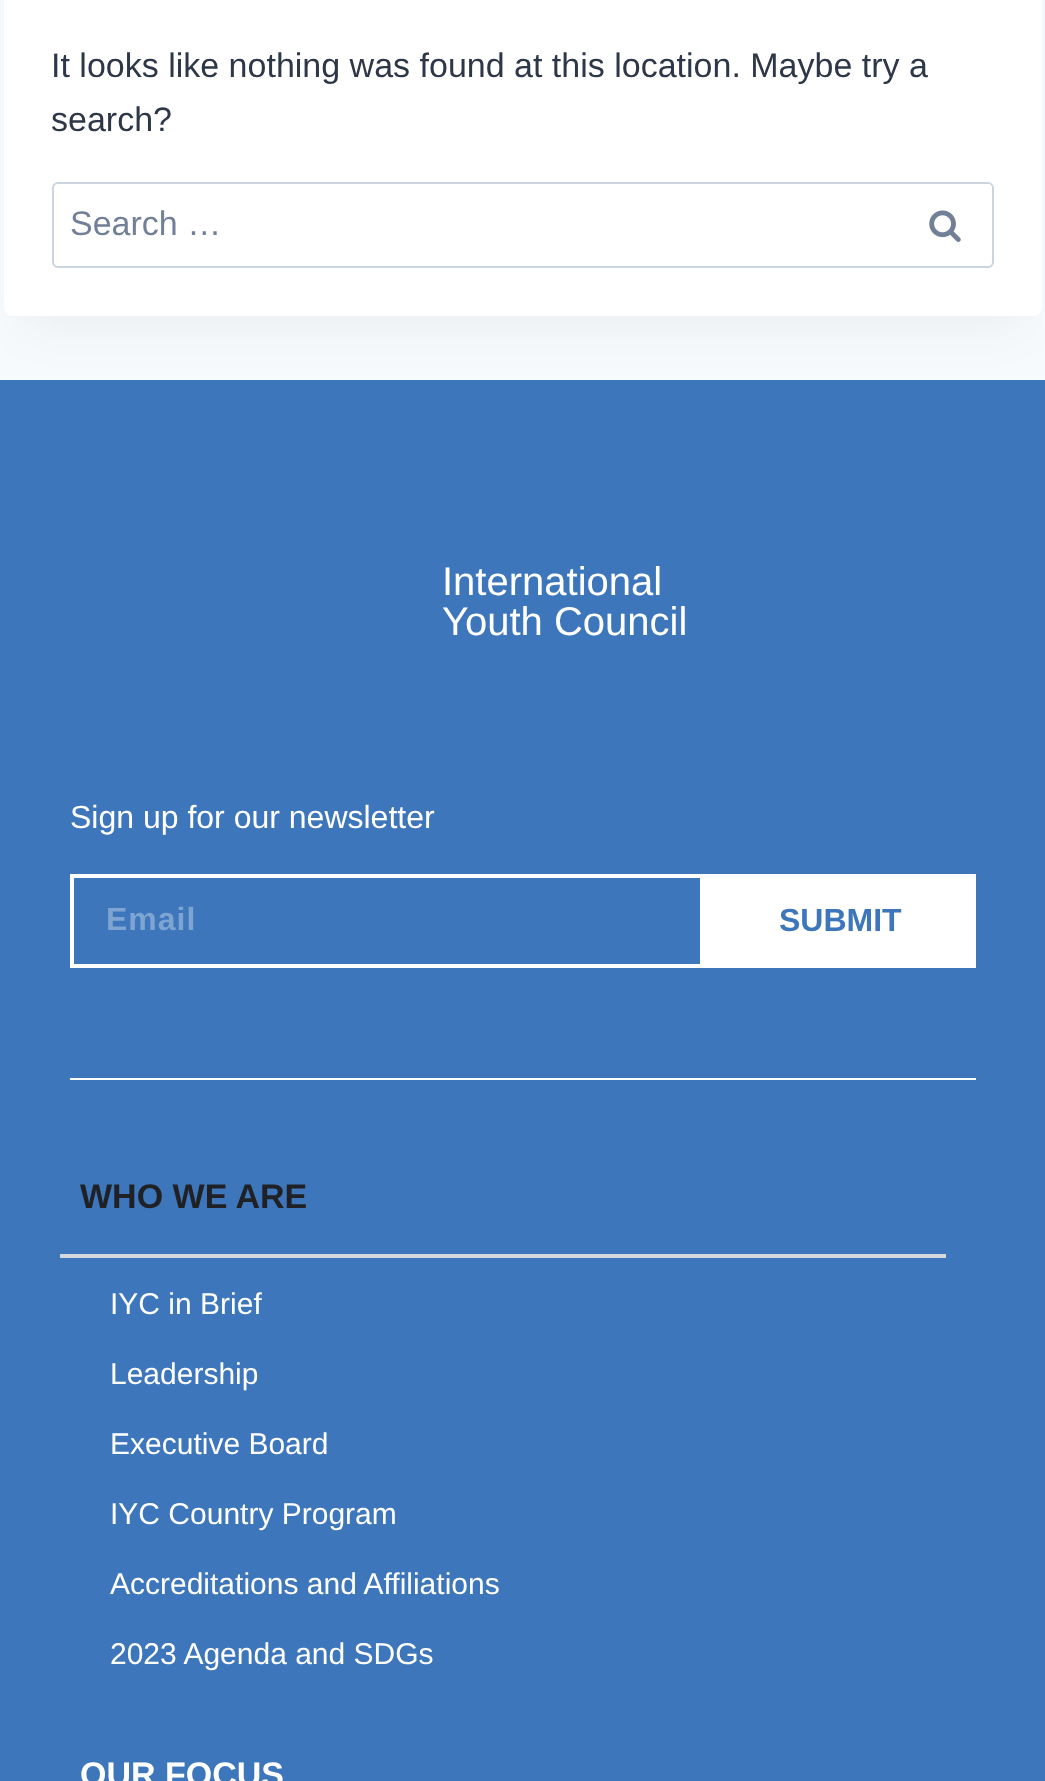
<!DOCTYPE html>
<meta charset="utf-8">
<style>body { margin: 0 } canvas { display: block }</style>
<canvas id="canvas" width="1045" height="1781"></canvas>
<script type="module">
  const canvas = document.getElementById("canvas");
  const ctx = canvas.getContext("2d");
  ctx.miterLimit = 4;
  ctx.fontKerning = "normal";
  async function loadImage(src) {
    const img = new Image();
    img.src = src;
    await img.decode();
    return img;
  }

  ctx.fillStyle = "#f7fafc";
  ctx.fillRect(0, 0, 1045, 1781);
  ctx.fillStyle = "rgba(0, 0, 0, 0.05)";
  ctx.filter = "blur(25px)";
  ctx.beginPath();
  ctx.rect(24, -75, 998, 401);
  ctx.fill();
  ctx.filter = "none";
  ctx.fillStyle = "#ffffff";
  ctx.beginPath();
  ctx.roundRect(4, -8, 1038, 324, 8);
  ctx.fill();
  ctx.font = "34px Liberation Sans";
  ctx.fillStyle = "#2d3748";
  ctx.fillText("It looks like nothing was found at this location. Maybe try a", 51, 77);
  ctx.fillText("search?", 51, 131);
  ctx.beginPath();
  ctx.roundRect(53, 183, 940, 84, 5);
  ctx.strokeStyle = "#cbd5e0";
  ctx.lineWidth = 2;
  ctx.stroke();
  ctx.fillStyle = "#718096";
  ctx.fillText("Search …", 70, 235);
  ctx.drawImage(await loadImage("img1.png"), 929, 210, 32, 32);
  ctx.fillStyle = "#3d76bb";
  ctx.fillRect(0, 380, 1045, 1401);
  ctx.font = "40px Liberation Sans";
  ctx.fillStyle = "#ffffff";
  ctx.fillText("International", 442, 595);
  ctx.fillText("Youth Council", 442, 635);
  ctx.font = "32px Liberation Sans";
  ctx.fillText("Sign up for our newsletter", 70, 828);
  ctx.strokeStyle = "#ffffff";
  ctx.lineWidth = 4;
  ctx.strokeRect(72, 876, 630, 90);
  ctx.letterSpacing = "1px";
  ctx.font = "bold 32px Liberation Sans";
  ctx.fillStyle = "#7ea4d2";
  ctx.fillText("Email", 106, 930);
  ctx.fillStyle = "#ffffff";
  ctx.fillRect(704, 874, 272, 94);
  ctx.letterSpacing = "0px";
  ctx.fillStyle = "#3d76bb";
  ctx.fillText("SUBMIT", 779, 931);
  ctx.fillStyle = "#ffffff";
  ctx.fillRect(70, 1078, 906, 2);
  ctx.fillStyle = "#d5d8dc";
  ctx.fillRect(60, 1254, 886, 4);
  ctx.font = "bold 34px Liberation Sans";
  ctx.fillStyle = "#1f2124";
  ctx.fillText("WHO WE ARE", 80, 1208);
  ctx.font = "30px Liberation Sans";
  ctx.fillStyle = "#ffffff";
  ctx.fillText("IYC in Brief", 110, 1314);
  ctx.fillText("Leadership", 110, 1384);
  ctx.fillText("Executive Board", 110, 1454);
  ctx.fillText("IYC Country Program", 110, 1524);
  ctx.fillText("Accreditations and Affiliations", 110, 1594);
  ctx.fillText("2023 Agenda and SDGs", 110, 1664);
  ctx.font = "bold 34px Liberation Sans";
  ctx.fillText("OUR FOCUS", 80, 1786);
</script>
